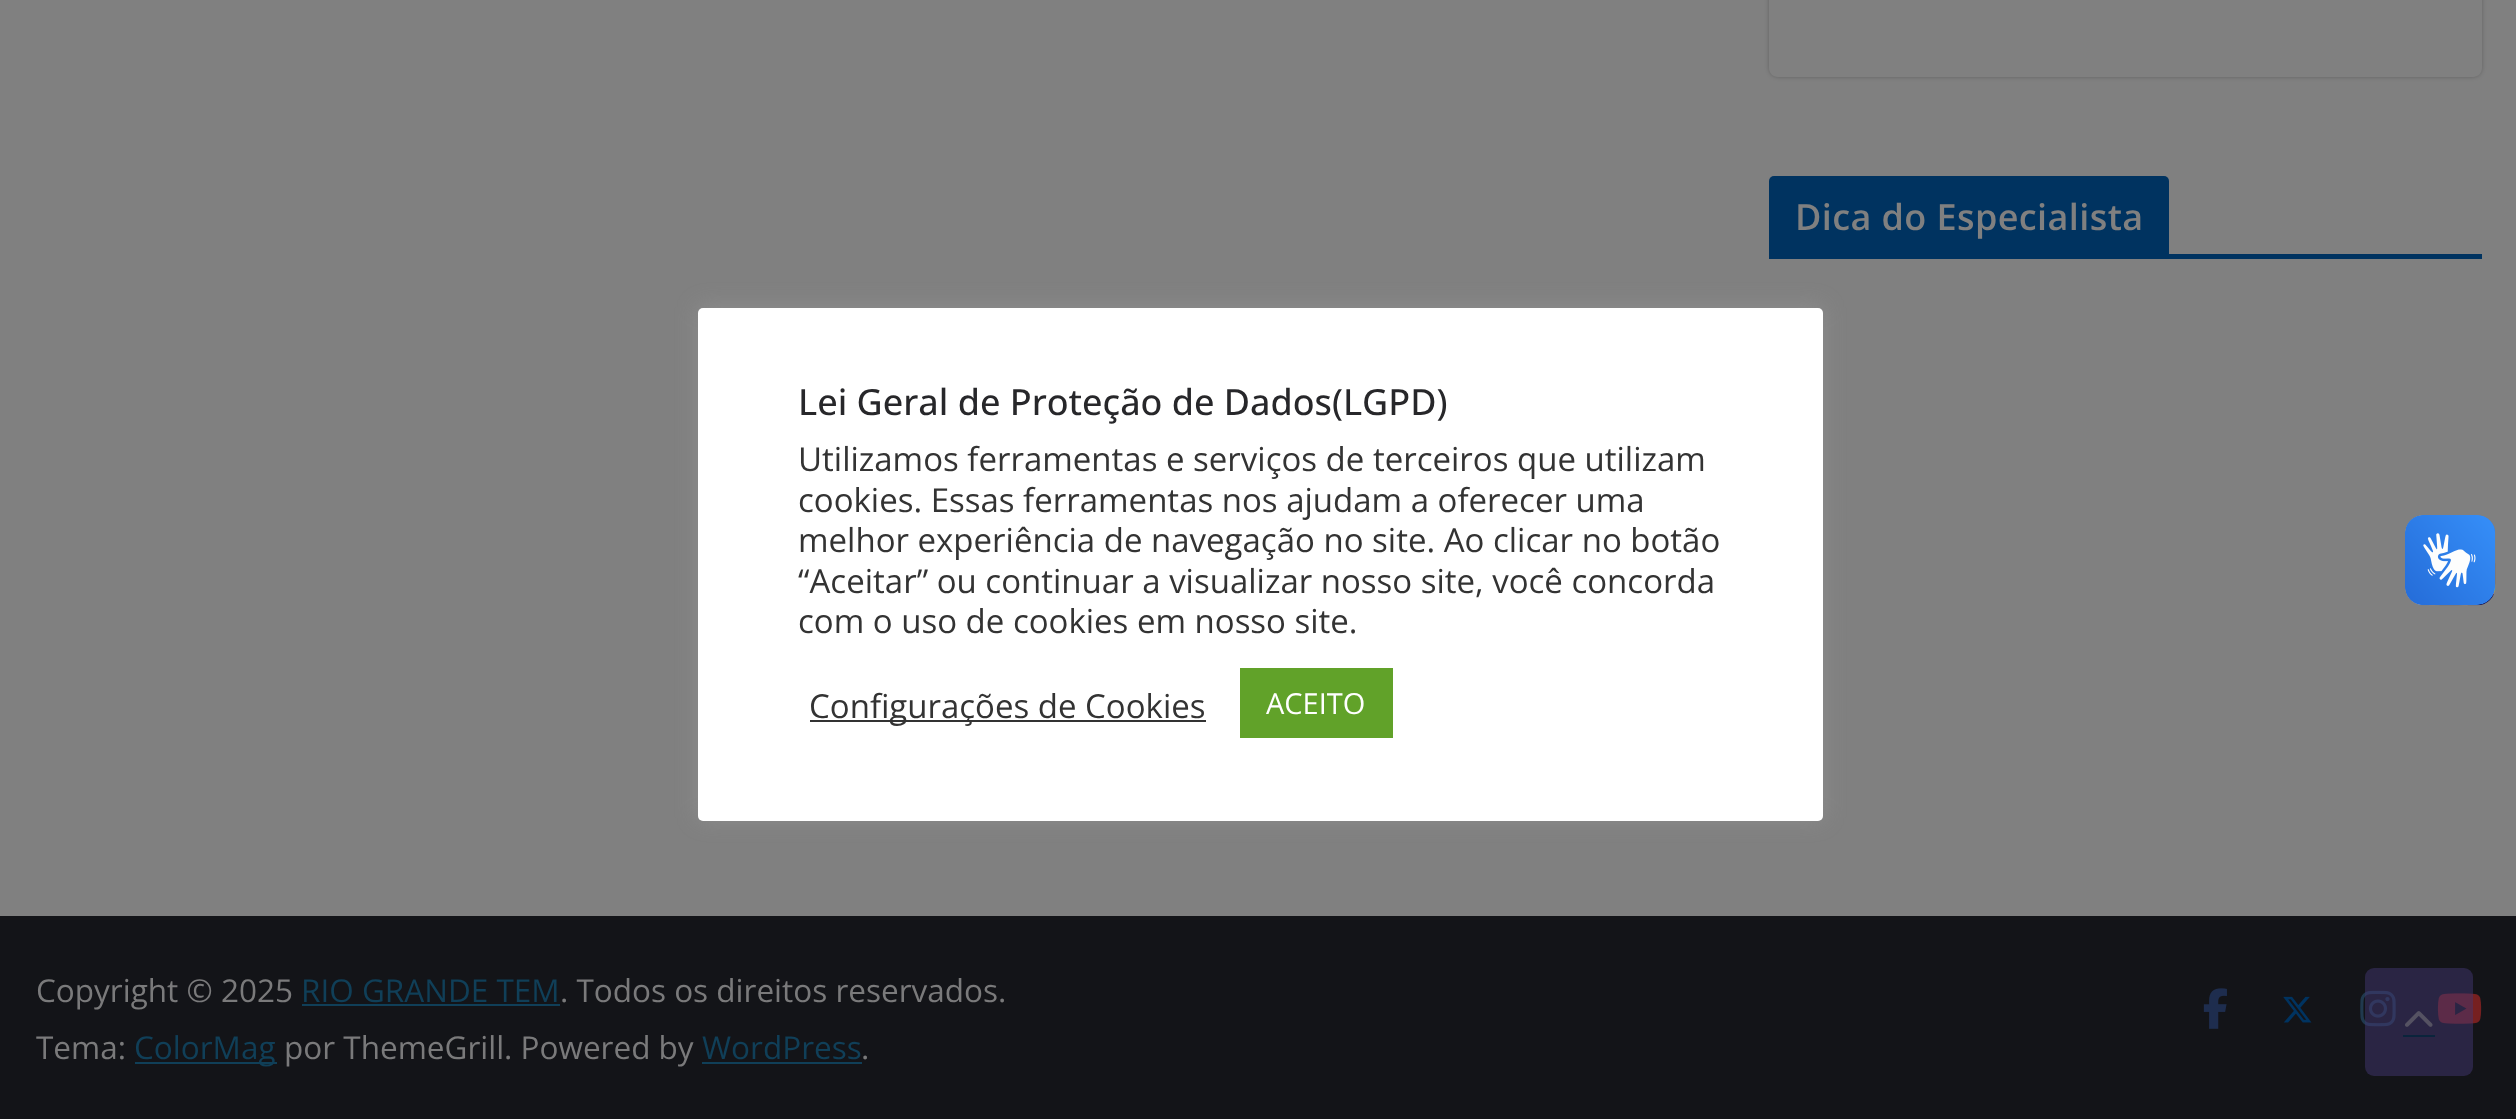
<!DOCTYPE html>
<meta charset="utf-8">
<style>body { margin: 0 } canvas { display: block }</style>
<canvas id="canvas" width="2516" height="1119"></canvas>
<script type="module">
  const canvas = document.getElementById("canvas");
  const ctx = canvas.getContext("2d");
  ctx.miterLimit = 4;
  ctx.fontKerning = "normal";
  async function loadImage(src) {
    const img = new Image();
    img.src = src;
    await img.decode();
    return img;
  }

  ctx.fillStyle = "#808080";
  ctx.fillRect(0, 0, 2516, 1119);
  ctx.save();
  ctx.beginPath();
  ctx.moveTo(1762, 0);
  ctx.lineTo(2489, 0);
  ctx.lineTo(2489, 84);
  ctx.lineTo(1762, 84);
  ctx.closePath();
  ctx.moveTo(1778, -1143);
  ctx.lineTo(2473, -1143);
  ctx.bezierCurveTo(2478, -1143, 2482, -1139, 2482, -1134);
  ctx.lineTo(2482, 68);
  ctx.bezierCurveTo(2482, 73, 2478, 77, 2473, 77);
  ctx.lineTo(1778, 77);
  ctx.bezierCurveTo(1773, 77, 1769, 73, 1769, 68);
  ctx.lineTo(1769, -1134);
  ctx.bezierCurveTo(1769, -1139, 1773, -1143, 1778, -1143);
  ctx.closePath();
  ctx.clip("evenodd");
  ctx.fillStyle = "rgba(0, 0, 0, 0.24)";
  ctx.filter = "blur(2px)";
  ctx.beginPath();
  ctx.roundRect(1769, -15, 713, 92, 9);
  ctx.fill();
  ctx.filter = "none";
  ctx.restore();
  ctx.fillStyle = "#003360";
  ctx.fillRect(1769, 254, 713, 5);
  ctx.beginPath();
  ctx.roundRect(1769, 176, 400, 78, [5, 5, 0, 0]);
  ctx.fill();
  ctx.letterSpacing = "0.4px";
  ctx.font = "600 36px Open Sans";
  ctx.fillStyle = "#808080";
  ctx.fillText("Dica do Especialista", 1795, 230);
  ctx.fillStyle = "#131418";
  ctx.fillRect(0, 916, 2516, 203);
  ctx.letterSpacing = "0px";
  ctx.font = "31.5px Open Sans";
  ctx.fillStyle = "#7a7a7b";
  ctx.fillText("Copyright © 2025", 36, 1002);
  ctx.fillStyle = "#103f58";
  ctx.fillText("RIO GRANDE TEM", 301, 1002);
  ctx.fillRect(302, 1004, 258, 2);
  ctx.fillStyle = "#7a7a7b";
  ctx.fillText(". Todos os direitos reservados.", 560, 1002);
  ctx.fillText("Tema:", 36, 1059);
  ctx.fillStyle = "#103f58";
  ctx.fillRect(135, 1062, 142, 2);
  ctx.fillText("ColorMag", 134, 1059);
  ctx.fillStyle = "#7a7a7b";
  ctx.fillText("por ThemeGrill. Powered by", 284, 1059);
  ctx.fillStyle = "#103f58";
  ctx.fillText("WordPress", 702, 1059);
  ctx.fillRect(702, 1062, 160, 2);
  ctx.fillStyle = "#7a7a7b";
  ctx.fillText(".", 861, 1059);
  ctx.drawImage(await loadImage("img1.png"), 2203, 988, 24, 41);
  ctx.drawImage(await loadImage("img2.png"), 2283, 996, 29, 27);
  ctx.drawImage(await loadImage("img3.png"), 2360, 990, 36, 37);
  ctx.drawImage(await loadImage("img4.png"), 2437, 993, 45, 31);
  ctx.fillStyle = "rgba(65, 53, 112, 0.5)";
  ctx.beginPath();
  ctx.roundRect(2365, 968, 108, 108, 9);
  ctx.fill();
  ctx.fillStyle = "#0a243c";
  ctx.fillRect(2403, 1035, 32, 2);
  ctx.drawImage(await loadImage("img5.png"), 2405, 1011, 28, 16);
  ctx.fillStyle = "rgba(172, 171, 171, 0.3)";
  ctx.filter = "blur(11px)";
  ctx.beginPath();
  ctx.roundRect(698, 306, 1125, 513, 5);
  ctx.fill();
  ctx.filter = "none";
  ctx.fillStyle = "#ffffff";
  ctx.beginPath();
  ctx.roundRect(698, 308, 1125, 513, 5);
  ctx.fill();
  ctx.font = "500 36px Open Sans";
  ctx.fillStyle = "#27272a";
  ctx.fillText("Lei Geral de Proteção de Dados(LGPD)", 798, 415);
  ctx.font = "33px Open Sans";
  ctx.fillStyle = "#333333";
  ctx.fillText("Utilizamos ferramentas e serviços de terceiros que utilizam", 798, 471);
  ctx.fillText("cookies. Essas ferramentas nos ajudam a oferecer uma", 798, 512);
  ctx.fillText("melhor experiência de navegação no site. Ao clicar no botão", 798, 552);
  ctx.fillText("“Aceitar” ou continuar a visualizar nosso site, você concorda", 798, 593);
  ctx.fillText("com o uso de cookies em nosso site.", 798, 633);
  ctx.fillRect(810, 720, 396, 2);
  ctx.fillText("Configurações de Cookies", 809, 718);
  ctx.fillStyle = "#61a229";
  ctx.fillRect(1240, 668, 153, 70);
  ctx.font = "29px Open Sans";
  ctx.fillStyle = "#ffffff";
  ctx.fillText("ACEITO", 1266, 714);
  ctx.drawImage(await loadImage("img6.png"), 2405, 515, 91, 91);
  ctx.drawImage(await loadImage("img7.png"), 2405, 515, 90, 90);
</script>
